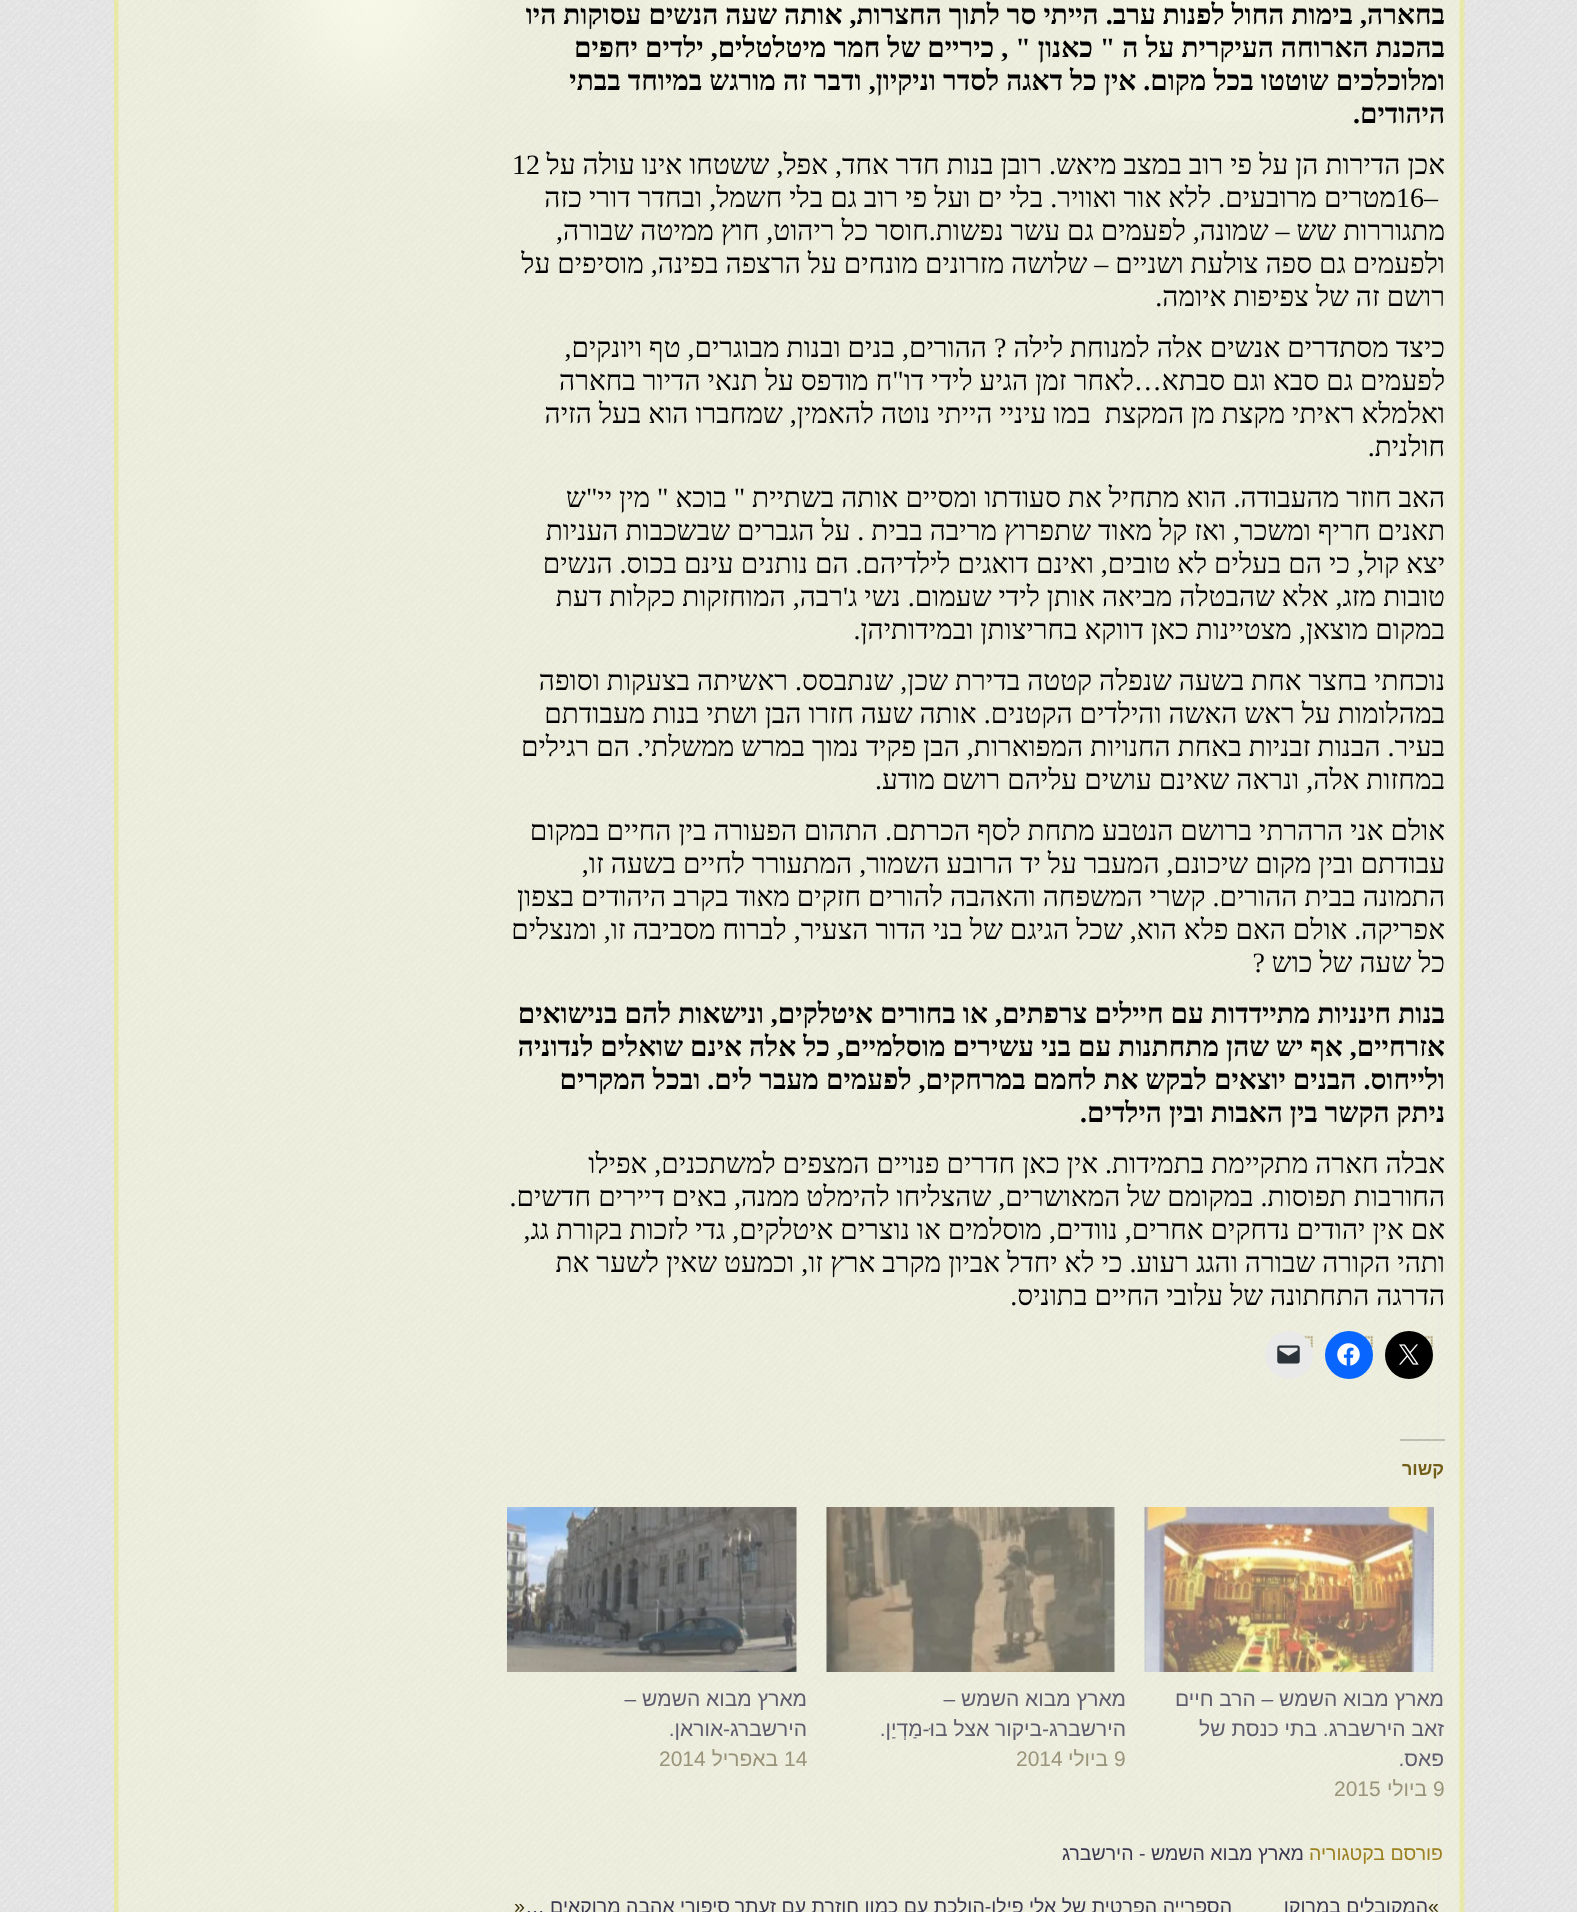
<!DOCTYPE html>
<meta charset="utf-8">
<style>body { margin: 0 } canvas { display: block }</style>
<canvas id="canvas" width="1577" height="1912"></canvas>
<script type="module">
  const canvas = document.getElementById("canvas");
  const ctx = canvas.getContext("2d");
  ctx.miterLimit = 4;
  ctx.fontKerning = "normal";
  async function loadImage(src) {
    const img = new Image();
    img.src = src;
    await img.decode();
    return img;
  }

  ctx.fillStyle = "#ffffff";
  ctx.fillRect(0, 0, 1577, 1912);
  ctx.drawImage(await loadImage("img1.png"), 0, 0, 1577, 1912);
  ctx.drawImage(await loadImage("img2.png"), 256, 0, 1065, 121);
  ctx.drawImage(await loadImage("img3.png"), 1439, 0, 26, 1912);
  ctx.drawImage(await loadImage("img4.png"), 114, 0, 1325, 1912);
  ctx.direction = "rtl";
  ctx.font = "bold 28px Liberation Serif";
  ctx.fillStyle = "#000000";
  ctx.fillText("בחארה, בימות החול לפנות ערב. הייתי סר לתוך החצרות, אותה שעה הנשים עסוקות היו", 1445, 24);
  ctx.fillText("בהכנת הארוחה העיקרית על ה \" כאנון \" , כיריים של חמר מיטלטלים, ילדים יחפים", 1445, 57);
  ctx.fillText("ומלוכלכים שוטטו בכל מקום. אין כל דאגה לסדר וניקיון, ודבר זה מורגש במיוחד בבתי", 1445, 90);
  ctx.fillText("היהודים.", 1445, 123);
  ctx.font = "28px Liberation Serif";
  ctx.fillText("אכן הדירות הן על פי רוב במצב מיאש. רובן בנות חדר אחד, אפל, ששטחו אינו עולה על", 1445, 174);
  ctx.direction = "ltr";
  ctx.fillText("12", 512, 174);
  ctx.fillText("16–", 1396, 207);
  ctx.direction = "rtl";
  ctx.fillText("מטרים מרובעים. ללא אור ואוויר. בלי ים ועל פי רוב גם בלי חשמל, ובחדר דורי כזה", 1396, 207);
  ctx.fillText("מתגוררות שש – שמונה, לפעמים גם עשר נפשות.חוסר כל ריהוט, חוץ ממיטה שבורה,", 1445, 240);
  ctx.fillText("ולפעמים גם ספה צולעת ושניים – שלושה מזרונים מונחים על הרצפה בפינה, מוסיפים על", 1445, 273);
  ctx.fillText("רושם זה של צפיפות איומה.", 1445, 306);
  ctx.fillText("כיצד מסתדרים אנשים אלה למנוחת לילה ? ההורים, בנים ובנות מבוגרים, טף ויונקים,", 1445, 357);
  ctx.fillText("לפעמים גם סבא וגם סבתא…לאחר זמן הגיע לידי דו\"ח מודפס על תנאי הדיור בחארה", 1445, 390);
  ctx.fillText("ואלמלא ראיתי מקצת מן המקצת  במו עיניי הייתי נוטה להאמין, שמחברו הוא בעל הזיה", 1445, 423);
  ctx.fillText("חולנית.", 1445, 456);
  ctx.fillText("האב חוזר מהעבודה. הוא מתחיל את סעודתו ומסיים אותה בשתיית \" בוכא \" מין יי\"ש", 1445, 507);
  ctx.fillText("תאנים חריף ומשכר, ואז קל מאוד שתפרוץ מריבה בבית . על הגברים שבשכבות העניות", 1445, 540);
  ctx.fillText("יצא קול, כי הם בעלים לא טובים, ואינם דואגים לילדיהם. הם נותנים עינם בכוס. הנשים", 1445, 573);
  ctx.fillText("טובות מזג, אלא שהבטלה מביאה אותן לידי שעמום. נשי ג'רבה, המוחזקות כקלות דעת", 1445, 606);
  ctx.fillText("במקום מוצאן, מצטיינות כאן דווקא בחריצותן ובמידותיהן.", 1445, 639);
  ctx.fillText("נוכחתי בחצר אחת בשעה שנפלה קטטה בדירת שכן, שנתבסס. ראשיתה בצעקות וסופה", 1445, 690);
  ctx.fillText("במהלומות על ראש האשה והילדים הקטנים. אותה שעה חזרו הבן ושתי בנות מעבודתם", 1445, 723);
  ctx.fillText("בעיר. הבנות זבניות באחת החנויות המפוארות, הבן פקיד נמוך במרש ממשלתי. הם רגילים", 1445, 756);
  ctx.fillText("במחזות אלה, ונראה שאינם עושים עליהם רושם מודע.", 1445, 789);
  ctx.fillText("אולם אני הרהרתי ברושם הנטבע מתחת לסף הכרתם. התהום הפעורה בין החיים במקום", 1445, 840);
  ctx.fillText("עבודתם ובין מקום שיכונם, המעבר על יד הרובע השמור, המתעורר לחיים בשעה זו,", 1445, 873);
  ctx.fillText("התמונה בבית ההורים. קשרי המשפחה והאהבה להורים חזקים מאוד בקרב היהודים בצפון", 1445, 906);
  ctx.fillText("אפריקה. אולם האם פלא הוא, שכל הגיגם של בני הדור הצעיר, לברוח מסביבה זו, ומנצלים", 1445, 939);
  ctx.fillText("כל שעה של כוש ?", 1445, 972);
  ctx.font = "bold 28px Liberation Serif";
  ctx.fillText("בנות חינניות מתיידדות עם חיילים צרפתים, או בחורים איטלקים, ונישאות להם בנישואים", 1445, 1023);
  ctx.fillText("אזרחיים, אף יש שהן מתחתנות עם בני עשירים מוסלמיים, כל אלה אינם שואלים לנדוניה", 1445, 1056);
  ctx.fillText("ולייחוס. הבנים יוצאים לבקש את לחמם במרחקים, לפעמים מעבר לים. ובכל המקרים", 1445, 1089);
  ctx.fillText("ניתק הקשר בין האבות ובין הילדים.", 1445, 1122);
  ctx.font = "28px Liberation Serif";
  ctx.fillText("אבלה חארה מתקיימת בתמידות. אין כאן חדרים פנויים המצפים למשתכנים, אפילו", 1445, 1173);
  ctx.fillText("החורבות תפוסות. במקומם של המאושרים, שהצליחו להימלט ממנה, באים דיירים חדשים.", 1445, 1206);
  ctx.fillText("אם אין יהודים נדחקים אחרים, נוודים, מוסלמים או נוצרים איטלקים, גדי לזכות בקורת גג,", 1445, 1239);
  ctx.fillText("ותהי הקורה שבורה והגג רעוע. כי לא יחדל אביון מקרב ארץ זו, וכמעט שאין לשער את", 1445, 1272);
  ctx.fillText("הדרגה התחתונה של עלובי החיים בתוניס.", 1445, 1305);
  ctx.drawImage(await loadImage("img5.png"), 1422, 1335, 11, 13);
  ctx.beginPath();
  ctx.arc(1409, 1355, 24, 0, Math.PI * 2);
  ctx.fill();
  ctx.drawImage(await loadImage("img6.png"), 1399, 1344, 20, 21);
  ctx.drawImage(await loadImage("img7.png"), 1362, 1335, 11, 13);
  ctx.fillStyle = "#0866ff";
  ctx.beginPath();
  ctx.arc(1349, 1355, 24, 0, Math.PI * 2);
  ctx.fill();
  ctx.drawImage(await loadImage("img8.png"), 1337, 1343, 23, 23);
  ctx.drawImage(await loadImage("img9.png"), 1302, 1335, 11, 13);
  ctx.fillStyle = "#e9e9e9";
  ctx.beginPath();
  ctx.arc(1289, 1355, 24, 0, Math.PI * 2);
  ctx.fill();
  ctx.drawImage(await loadImage("img10.png"), 1277, 1345, 23, 19);
  ctx.fillStyle = "rgba(0, 0, 0, 0.2)";
  ctx.fillRect(1400, 1439, 45, 2);
  ctx.font = "bold 18px Liberation Sans";
  ctx.fillStyle = "#725e18";
  ctx.fillText("קשור", 1444, 1475);
  ctx.drawImage(await loadImage("img11.png"), 1144, 1507, 290, 165);
  ctx.font = "21px Liberation Sans";
  ctx.fillStyle = "#5e5d6d";
  ctx.fillText("מארץ מבוא השמש – הרב חיים", 1444, 1706);
  ctx.fillText("זאב הירשברג. בתי כנסת של", 1444, 1736);
  ctx.fillText("פאס.", 1444, 1766);
  ctx.direction = "ltr";
  ctx.fillStyle = "#989379";
  ctx.fillText("9", 1433, 1796);
  ctx.direction = "rtl";
  ctx.fillText("ביולי", 1427, 1796);
  ctx.direction = "ltr";
  ctx.fillText("2015", 1334, 1796);
  ctx.drawImage(await loadImage("img12.png"), 826, 1507, 289, 165);
  ctx.direction = "rtl";
  ctx.fillStyle = "#5e5d6d";
  ctx.fillText("מארץ מבוא השמש –", 1126, 1706);
  ctx.fillText("הירשברג-ביקור אצל בוּ-מַדְיַן.", 1126, 1736);
  ctx.direction = "ltr";
  ctx.fillStyle = "#989379";
  ctx.fillText("9", 1114, 1766);
  ctx.direction = "rtl";
  ctx.fillText("ביולי", 1108, 1766);
  ctx.direction = "ltr";
  ctx.fillText("2014", 1016, 1766);
  ctx.drawImage(await loadImage("img13.png"), 507, 1507, 290, 165);
  ctx.direction = "rtl";
  ctx.fillStyle = "#5e5d6d";
  ctx.fillText("מארץ מבוא השמש –", 807, 1706);
  ctx.fillText("הירשברג-אוראן.", 807, 1736);
  ctx.direction = "ltr";
  ctx.fillStyle = "#989379";
  ctx.fillText("14", 784, 1766);
  ctx.direction = "rtl";
  ctx.fillText("באפריל", 778, 1766);
  ctx.direction = "ltr";
  ctx.fillText("2014", 659, 1766);
  ctx.direction = "rtl";
  ctx.font = "19.5px Liberation Sans";
  ctx.fillStyle = "#9c8121";
  ctx.fillText("פורסם בקטגוריה", 1443, 1860);
  ctx.fillStyle = "#3a3951";
  ctx.fillText("מארץ מבוא השמש - הירשברג", 1304, 1860);
  ctx.direction = "ltr";
  ctx.fillStyle = "#3b310c";
  ctx.fillText("«", 1428, 1913);
  ctx.direction = "rtl";
  ctx.fillStyle = "#3a3951";
  ctx.fillText("המקובלים במרוקו", 1428, 1913);
  ctx.fillText("הספרייה הפרטית של אלי פילו-הולכת עם כמון חוזרת עם זעתר", 1232, 1913);
  ctx.fillText("סיפורי אהבה מרוקאים …", 730, 1913);
  ctx.direction = "ltr";
  ctx.fillStyle = "#3b310c";
  ctx.fillText("»", 514, 1913);
</script>
